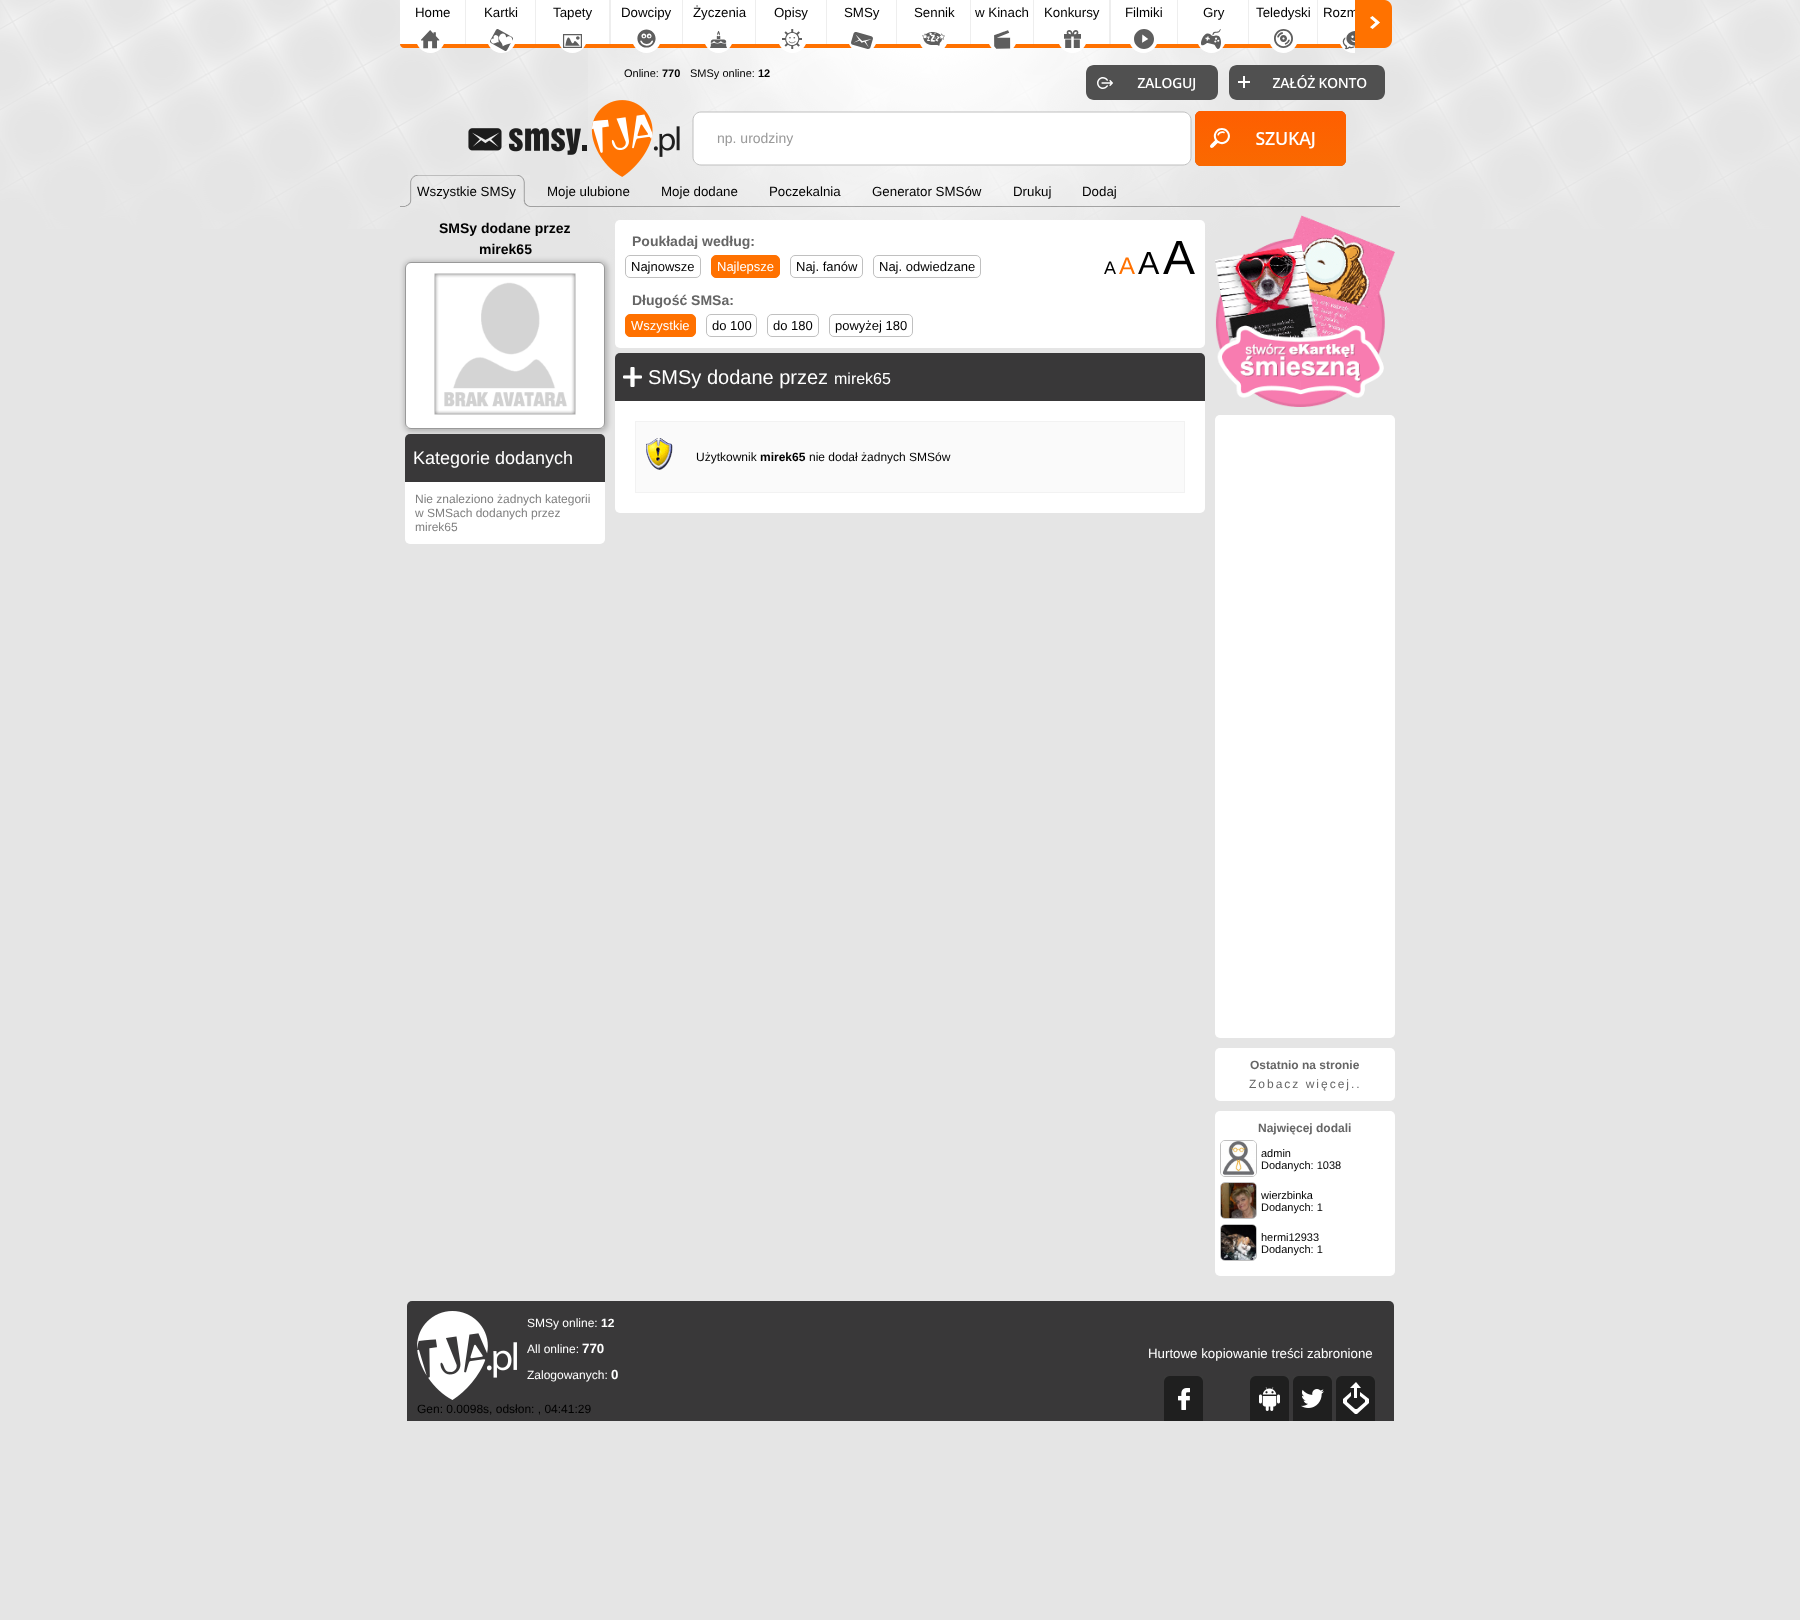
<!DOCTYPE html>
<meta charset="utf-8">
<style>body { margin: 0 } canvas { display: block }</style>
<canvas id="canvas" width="1800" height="1620"></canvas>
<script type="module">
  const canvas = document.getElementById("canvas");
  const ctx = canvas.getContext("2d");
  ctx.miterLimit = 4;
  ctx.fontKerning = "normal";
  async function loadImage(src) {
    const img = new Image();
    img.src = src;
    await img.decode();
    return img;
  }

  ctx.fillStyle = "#e5e5e5";
  ctx.fillRect(0, 0, 1800, 1620);
  ctx.drawImage(await loadImage("img1.png"), 588, 48, 671, 227);
  ctx.drawImage(await loadImage("img2.png"), 0, 0, 1800, 229);
  ctx.drawImage(await loadImage("img3.png"), 400, 0, 66, 53);
  ctx.font = "13.3px Liberation Sans";
  ctx.fillStyle = "#000000";
  ctx.fillText("Home", 415, 17);
  ctx.drawImage(await loadImage("img4.png"), 466, 0, 70, 53);
  ctx.fillText("Kartki", 484, 17);
  ctx.drawImage(await loadImage("img5.png"), 536, 0, 74, 53);
  ctx.fillText("Tapety", 553, 17);
  ctx.drawImage(await loadImage("img6.png"), 610, 0, 73, 53);
  ctx.fillText("Dowcipy", 621, 17);
  ctx.drawImage(await loadImage("img7.png"), 683, 0, 73, 53);
  ctx.fillText("Życzenia", 693, 17);
  ctx.drawImage(await loadImage("img8.png"), 756, 0, 71, 53);
  ctx.fillText("Opisy", 774, 17);
  ctx.drawImage(await loadImage("img9.png"), 827, 0, 70, 49);
  ctx.fillText("SMSy", 844, 17);
  ctx.drawImage(await loadImage("img10.png"), 897, 0, 74, 48);
  ctx.fillText("Sennik", 914, 17);
  ctx.drawImage(await loadImage("img11.png"), 971, 0, 63, 49);
  ctx.fillText("w Kinach", 975, 17);
  ctx.drawImage(await loadImage("img12.png"), 1034, 0, 76, 53);
  ctx.fillText("Konkursy", 1044, 17);
  ctx.drawImage(await loadImage("img13.png"), 1110, 0, 68, 53);
  ctx.fillText("Filmiki", 1125, 17);
  ctx.drawImage(await loadImage("img14.png"), 1178, 0, 71, 53);
  ctx.fillText("Gry", 1203, 17);
  ctx.drawImage(await loadImage("img15.png"), 1249, 0, 69, 53);
  ctx.fillText("Teledyski", 1256, 17);
  ctx.drawImage(await loadImage("img16.png"), 1318, 0, 37, 53);
  ctx.save();
  ctx.beginPath();
  ctx.rect(400, 0, 955, 70);
  ctx.clip();
  ctx.fillText("Rozm", 1323, 17);
  ctx.restore();
  ctx.drawImage(await loadImage("img17.png"), 1355, 0, 37, 48);
  ctx.font = "11px Liberation Sans";
  ctx.fillText("Online:", 624, 77);
  ctx.font = "bold 11px Liberation Sans";
  ctx.fillText("770", 662, 77);
  ctx.font = "11px Liberation Sans";
  ctx.fillText("SMSy online:", 690, 77);
  ctx.font = "bold 11px Liberation Sans";
  ctx.fillText("12", 758, 77);
  ctx.drawImage(await loadImage("img18.png"), 1086, 65, 132, 35);
  ctx.drawImage(await loadImage("img19.png"), 1229, 65, 156, 35);
  ctx.drawImage(await loadImage("img23.png"), 400, 175, 116, 33);
  ctx.drawImage(await loadImage("img24.png"), 516, 175, 14, 32);
  ctx.drawImage(await loadImage("img20.png"), 468, 100, 212, 77);
  ctx.drawImage(await loadImage("img21.png"), 692, 111, 500, 55);
  ctx.font = "14px Liberation Sans";
  ctx.fillStyle = "#999999";
  ctx.fillText("np. urodziny", 717, 143);
  ctx.drawImage(await loadImage("img22.png"), 1195, 111, 151, 55);
  ctx.font = "13.3px Liberation Sans";
  ctx.fillStyle = "#000000";
  ctx.fillText("Wszystkie SMSy", 417, 196);
  ctx.drawImage(await loadImage("img25.png"), 530, 206, 100, 2);
  ctx.fillText("Moje ulubione", 547, 196);
  ctx.drawImage(await loadImage("img26.png"), 630, 206, 14, 1);
  ctx.drawImage(await loadImage("img27.png"), 644, 206, 94, 1);
  ctx.fillText("Moje dodane", 661, 196);
  ctx.drawImage(await loadImage("img26.png"), 738, 206, 14, 1);
  ctx.drawImage(await loadImage("img28.png"), 752, 206, 89, 1);
  ctx.fillText("Poczekalnia", 769, 196);
  ctx.drawImage(await loadImage("img29.png"), 841, 206, 14, 1);
  ctx.drawImage(await loadImage("img30.png"), 855, 206, 127, 1);
  ctx.fillText("Generator SMSów", 872, 196);
  ctx.drawImage(await loadImage("img26.png"), 982, 206, 14, 1);
  ctx.drawImage(await loadImage("img31.png"), 996, 206, 55, 1);
  ctx.fillText("Drukuj", 1013, 196);
  ctx.drawImage(await loadImage("img26.png"), 1051, 206, 14, 1);
  ctx.drawImage(await loadImage("img32.png"), 1065, 206, 52, 1);
  ctx.fillText("Dodaj", 1082, 196);
  ctx.drawImage(await loadImage("img26.png"), 1117, 206, 14, 1);
  ctx.drawImage(await loadImage("img33.png"), 1131, 206, 269, 2);
  ctx.font = "bold 14px Liberation Sans";
  ctx.fillText("SMSy dodane przez", 439, 233);
  ctx.fillStyle = "rgba(0, 0, 0, 0.2)";
  ctx.filter = "blur(2.5px)";
  ctx.beginPath();
  ctx.roundRect(404, 261, 204, 171, 8);
  ctx.fill();
  ctx.filter = "none";
  ctx.fillStyle = "#000000";
  ctx.fillText("mirek65", 479, 254);
  ctx.fillStyle = "#ffffff";
  ctx.beginPath();
  ctx.roundRect(405, 262, 200, 167, 6);
  ctx.fill();
  ctx.beginPath();
  ctx.roundRect(405.5, 262.5, 199, 166, 5.5);
  ctx.strokeStyle = "rgba(0, 0, 0, 0.4)";
  ctx.stroke();
  ctx.drawImage(await loadImage("img34.png"), 434, 273, 142, 142);
  ctx.fillStyle = "#393839";
  ctx.beginPath();
  ctx.roundRect(405, 434, 200, 48, [5, 5, 0, 0]);
  ctx.fill();
  ctx.font = "18px Liberation Sans";
  ctx.fillStyle = "#ffffff";
  ctx.fillText("Kategorie dodanych", 413, 464);
  ctx.beginPath();
  ctx.roundRect(405, 482, 200, 62, [0, 0, 5, 5]);
  ctx.fill();
  ctx.font = "12px Liberation Sans";
  ctx.fillStyle = "#808080";
  ctx.fillText("Nie znaleziono żadnych kategorii", 415, 503);
  ctx.fillText("w SMSach dodanych przez", 415, 517);
  ctx.fillText("mirek65", 415, 531);
  ctx.fillStyle = "#ffffff";
  ctx.beginPath();
  ctx.roundRect(615, 220, 590, 128, 5);
  ctx.fill();
  ctx.font = "bold 14px Liberation Sans";
  ctx.fillStyle = "#666666";
  ctx.fillText("Poukładaj według:", 632, 246);
  ctx.beginPath();
  ctx.roundRect(625.5, 255.5, 75, 22, 4.5);
  ctx.strokeStyle = "#c0c0c0";
  ctx.stroke();
  ctx.font = "13px Liberation Sans";
  ctx.fillStyle = "#000000";
  ctx.fillText("Najnowsze", 631, 271);
  ctx.fillStyle = "#ff7100";
  ctx.beginPath();
  ctx.roundRect(711.5, 255.5, 68, 22, 4.5);
  ctx.fill();
  ctx.strokeStyle = "#ff7100";
  ctx.stroke();
  ctx.fillStyle = "#ffffff";
  ctx.fillText("Najlepsze", 717, 271);
  ctx.beginPath();
  ctx.roundRect(790.5, 255.5, 72, 22, 4.5);
  ctx.strokeStyle = "#c0c0c0";
  ctx.stroke();
  ctx.fillStyle = "#000000";
  ctx.fillText("Naj. fanów", 796, 271);
  ctx.beginPath();
  ctx.roundRect(873.5, 255.5, 107, 22, 4.5);
  ctx.stroke();
  ctx.fillText("Naj. odwiedzane", 879, 271);
  ctx.font = "18px Liberation Sans";
  ctx.fillText("A", 1104, 274);
  ctx.font = "24px Liberation Sans";
  ctx.fillStyle = "#ff7100";
  ctx.fillText("A", 1119, 274);
  ctx.font = "32px Liberation Sans";
  ctx.fillStyle = "#000000";
  ctx.fillText("A", 1138, 274);
  ctx.font = "48px Liberation Sans";
  ctx.fillText("A", 1163, 274);
  ctx.font = "bold 14px Liberation Sans";
  ctx.fillStyle = "#666666";
  ctx.fillText("Długość SMSa:", 632, 305);
  ctx.fillStyle = "#ff7100";
  ctx.beginPath();
  ctx.roundRect(625.5, 314.5, 70, 22, 4.5);
  ctx.fill();
  ctx.strokeStyle = "#ff7100";
  ctx.stroke();
  ctx.font = "13px Liberation Sans";
  ctx.fillStyle = "#ffffff";
  ctx.fillText("Wszystkie", 631, 330);
  ctx.beginPath();
  ctx.roundRect(706.5, 314.5, 50, 22, 4.5);
  ctx.strokeStyle = "#c0c0c0";
  ctx.stroke();
  ctx.fillStyle = "#000000";
  ctx.fillText("do 100", 712, 330);
  ctx.beginPath();
  ctx.roundRect(767.5, 314.5, 51, 22, 4.5);
  ctx.stroke();
  ctx.fillText("do 180", 773, 330);
  ctx.beginPath();
  ctx.roundRect(829.5, 314.5, 83, 22, 4.5);
  ctx.stroke();
  ctx.fillText("powyżej 180", 835, 330);
  ctx.fillStyle = "#393839";
  ctx.beginPath();
  ctx.roundRect(615, 353, 590, 48, [5, 5, 0, 0]);
  ctx.fill();
  ctx.drawImage(await loadImage("img35.png"), 623, 367, 19, 20);
  ctx.font = "20px Liberation Sans";
  ctx.fillStyle = "#ffffff";
  ctx.fillText("SMSy dodane przez", 648, 384);
  ctx.font = "16px Liberation Sans";
  ctx.fillText("mirek65", 834, 384);
  ctx.beginPath();
  ctx.roundRect(615, 401, 590, 112, [0, 0, 5, 5]);
  ctx.fill();
  ctx.fillStyle = "#fafafa";
  ctx.fillRect(636, 422, 548, 70);
  ctx.drawImage(await loadImage("img36.png"), 646, 438, 27, 32);
  ctx.strokeStyle = "#f2f2f2";
  ctx.strokeRect(635.5, 421.5, 549, 71);
  ctx.font = "12px Liberation Sans";
  ctx.fillStyle = "#000000";
  ctx.fillText("Użytkownik", 696, 461);
  ctx.font = "bold 12px Liberation Sans";
  ctx.fillText("mirek65", 760, 461);
  ctx.font = "12px Liberation Sans";
  ctx.fillText("nie dodał żadnych SMSów", 809, 461);
  ctx.drawImage(await loadImage("img37.png"), 1215, 215, 180, 192);
  ctx.fillStyle = "#ffffff";
  ctx.beginPath();
  ctx.roundRect(1215, 415, 180, 623, 5);
  ctx.fill();
  ctx.beginPath();
  ctx.roundRect(1215, 1048, 180, 53, 5);
  ctx.fill();
  ctx.font = "bold 12px Liberation Sans";
  ctx.fillStyle = "#666666";
  ctx.fillText("Ostatnio na stronie", 1250, 1069);
  ctx.letterSpacing = "2px";
  ctx.font = "12px Liberation Sans";
  ctx.fillText("Zobacz więcej..", 1249, 1088);
  ctx.fillStyle = "#ffffff";
  ctx.beginPath();
  ctx.roundRect(1215, 1111, 180, 165, 5);
  ctx.fill();
  ctx.letterSpacing = "0px";
  ctx.font = "bold 12px Liberation Sans";
  ctx.fillStyle = "#666666";
  ctx.fillText("Najwięcej dodali", 1258, 1132);
  ctx.beginPath();
  ctx.roundRect(1220.5, 1140.5, 36, 36, 4.5);
  ctx.strokeStyle = "#c0c0c0";
  ctx.stroke();
  ctx.drawImage(await loadImage("img38.png"), 1221, 1141, 35, 35);
  ctx.font = "11px Liberation Sans";
  ctx.fillStyle = "#000000";
  ctx.fillText("admin", 1261, 1157);
  ctx.fillText("Dodanych: 1038", 1261, 1169);
  ctx.beginPath();
  ctx.roundRect(1220.5, 1182.5, 36, 36, 4.5);
  ctx.stroke();
  ctx.drawImage(await loadImage("img39.png"), 1221, 1183, 35, 35);
  ctx.fillText("wierzbinka", 1261, 1199);
  ctx.fillText("Dodanych: 1", 1261, 1211);
  ctx.beginPath();
  ctx.roundRect(1220.5, 1224.5, 36, 36, 4.5);
  ctx.stroke();
  ctx.drawImage(await loadImage("img40.png"), 1221, 1225, 35, 35);
  ctx.fillText("hermi12933", 1261, 1241);
  ctx.fillText("Dodanych: 1", 1261, 1253);
  ctx.fillStyle = "#393839";
  ctx.beginPath();
  ctx.roundRect(407, 1301, 987, 120, [5, 5, 0, 0]);
  ctx.fill();
  ctx.drawImage(await loadImage("img41.png"), 417, 1311, 100, 89);
  ctx.font = "12px Liberation Sans";
  ctx.fillStyle = "#ffffff";
  ctx.fillText("SMSy online:", 527, 1327);
  ctx.font = "bold 12px Liberation Sans";
  ctx.fillText("12", 601, 1327);
  ctx.font = "12px Liberation Sans";
  ctx.fillText("All online:", 527, 1353);
  ctx.font = "bold 13.3px Liberation Sans";
  ctx.fillText("770", 582, 1353);
  ctx.font = "12px Liberation Sans";
  ctx.fillText("Zalogowanych:", 527, 1379);
  ctx.font = "bold 13.3px Liberation Sans";
  ctx.fillText("0", 611, 1379);
  ctx.font = "13.3px Liberation Sans";
  ctx.fillText("Hurtowe kopiowanie treści zabronione", 1148, 1358);
  ctx.font = "12px Liberation Sans";
  ctx.fillStyle = "#000000";
  ctx.fillText("Gen: 0.0098s, odsłon: , 04:41:29", 417, 1413);
  ctx.drawImage(await loadImage("img42.png"), 1164, 1376, 39, 45);
  ctx.drawImage(await loadImage("img43.png"), 1250, 1376, 39, 45);
  ctx.drawImage(await loadImage("img44.png"), 1293, 1376, 39, 45);
  ctx.drawImage(await loadImage("img45.png"), 1336, 1376, 39, 45);
</script>
